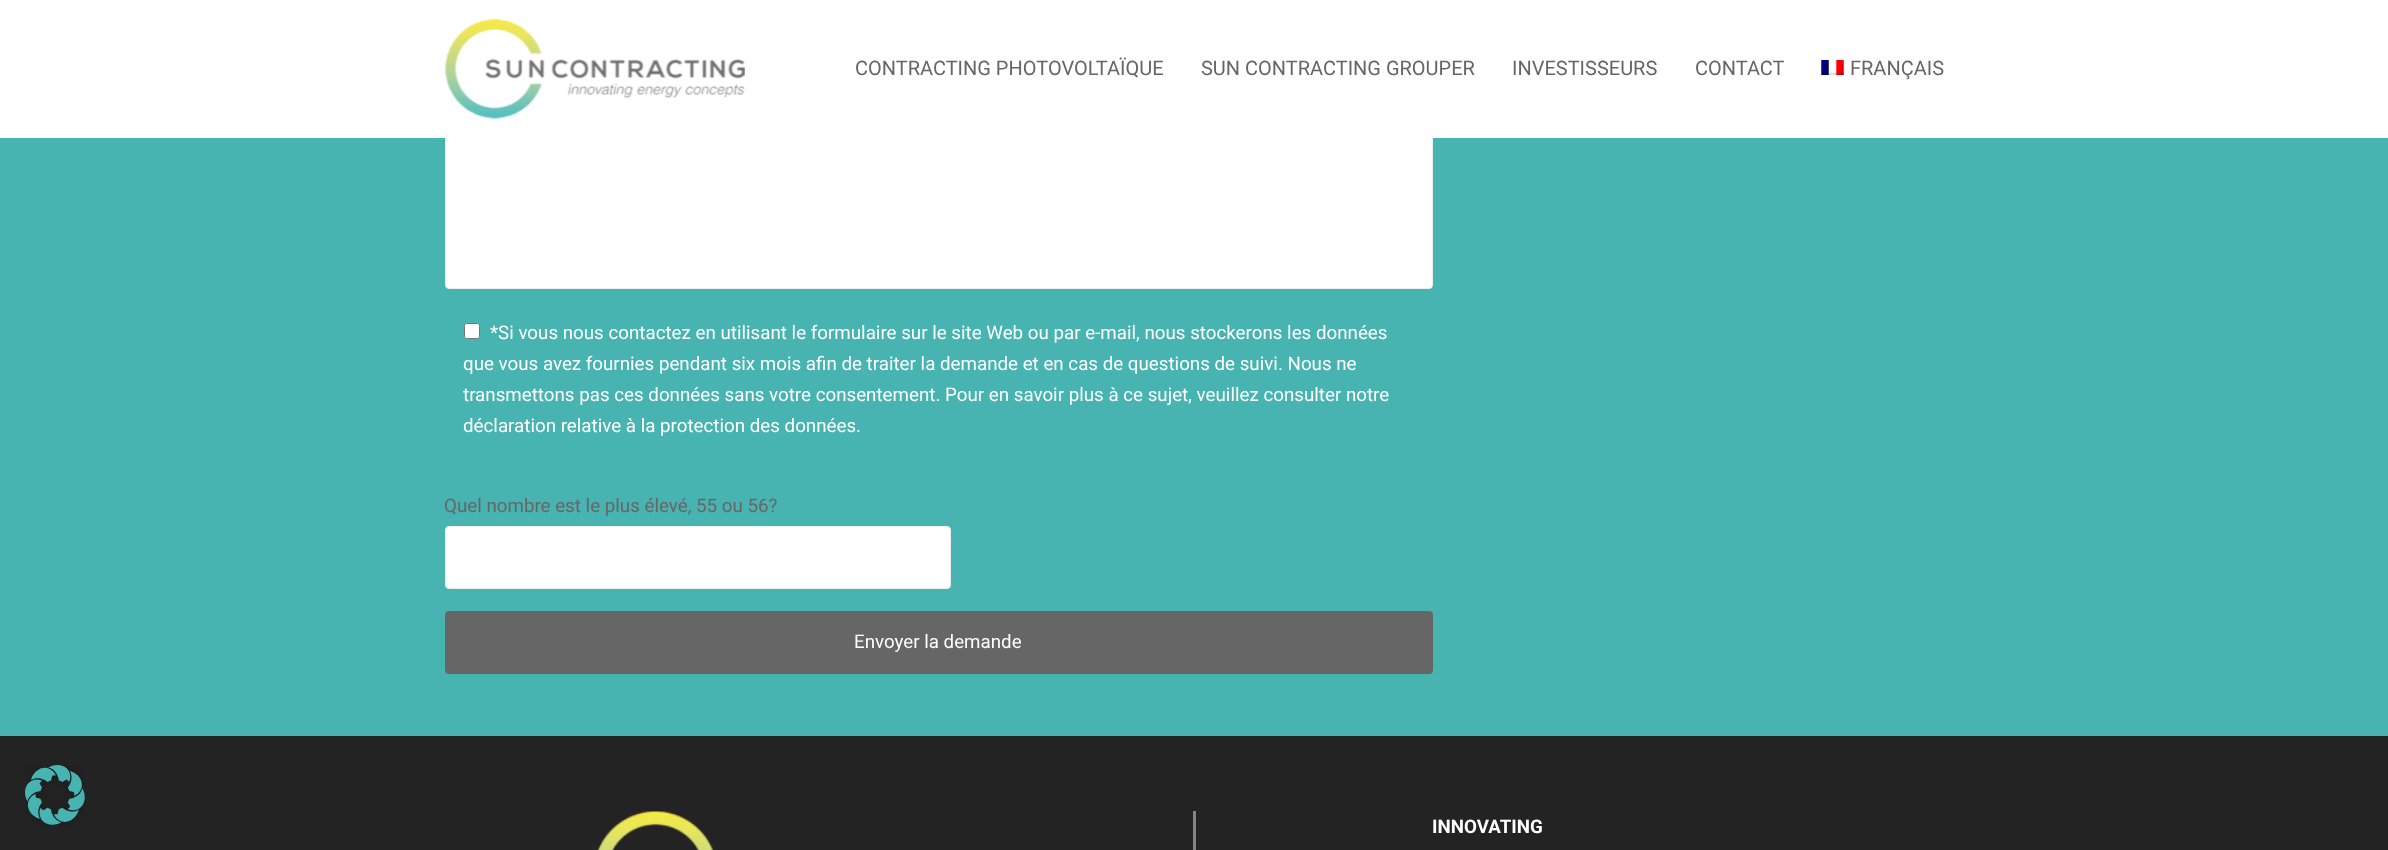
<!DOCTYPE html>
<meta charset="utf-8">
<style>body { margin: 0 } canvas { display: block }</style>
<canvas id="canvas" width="2388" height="850"></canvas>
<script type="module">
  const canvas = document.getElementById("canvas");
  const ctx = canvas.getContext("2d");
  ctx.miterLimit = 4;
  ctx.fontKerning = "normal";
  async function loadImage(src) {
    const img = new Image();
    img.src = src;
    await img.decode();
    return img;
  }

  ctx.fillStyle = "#232323";
  ctx.fillRect(0, 0, 2388, 850);
  ctx.drawImage(await loadImage("img1.png"), 25, 765, 60, 60);
  ctx.fillStyle = "#47b4b2";
  ctx.fillRect(0, 138, 2388, 598);
  ctx.fillStyle = "#ffffff";
  ctx.beginPath();
  ctx.roundRect(445.5, -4.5, 987, 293, 3.5);
  ctx.fill();
  ctx.strokeStyle = "#eeeeee";
  ctx.stroke();
  ctx.fillRect(0, 0, 2388, 138);
  ctx.drawImage(await loadImage("img2.png"), 444, 18, 301, 101);
  ctx.font = "20px Roboto";
  ctx.fillStyle = "#666666";
  ctx.fillText("CONTRACTING PHOTOVOLTAÏQUE", 855, 75);
  ctx.fillText("SUN CONTRACTING GROUPER", 1201, 75);
  ctx.fillText("INVESTISSEURS", 1512, 75);
  ctx.fillText("CONTACT", 1695, 75);
  ctx.drawImage(await loadImage("img3.png"), 1821, 60, 23, 15);
  ctx.fillText("FRANÇAIS", 1850, 75);
  ctx.fillStyle = "#ffffff";
  ctx.beginPath();
  ctx.roundRect(464.5, 323.5, 15, 15, 2);
  ctx.fill();
  ctx.strokeStyle = "#767676";
  ctx.stroke();
  ctx.font = "18.75px 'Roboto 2'";
  ctx.fillText("*Si vous nous contactez en utilisant le formulaire sur le site Web ou par e-mail, nous stockerons les données", 490, 339);
  ctx.fillText("que vous avez fournies pendant six mois afin de traiter la demande et en cas de questions de suivi. Nous ne", 463, 370);
  ctx.fillText("transmettons pas ces données sans votre consentement. Pour en savoir plus à ce sujet, veuillez consulter notre", 463, 401);
  ctx.fillText("déclaration relative à la protection des données.", 463, 432);
  ctx.fillStyle = "#666666";
  ctx.fillText("Quel nombre est le plus élevé, 55 ou 56?", 444, 512);
  ctx.fillStyle = "#ffffff";
  ctx.beginPath();
  ctx.roundRect(445.5, 526.5, 505, 62, 3.5);
  ctx.fill();
  ctx.strokeStyle = "#eeeeee";
  ctx.stroke();
  ctx.fillStyle = "#666666";
  ctx.beginPath();
  ctx.roundRect(445, 611, 988, 63, 4);
  ctx.fill();
  ctx.font = "18.75px Roboto";
  ctx.fillStyle = "#ffffff";
  ctx.fillText("Envoyer la demande", 854, 648);
  ctx.fillStyle = "#848484";
  ctx.fillRect(1193, 811, 3, 39);
  ctx.drawImage(await loadImage("img4.png"), 597, 811, 117, 39);
  ctx.font = "bold 18.75px Roboto";
  ctx.fillStyle = "#ffffff";
  ctx.fillText("INNOVATING", 1432, 833);
</script>
